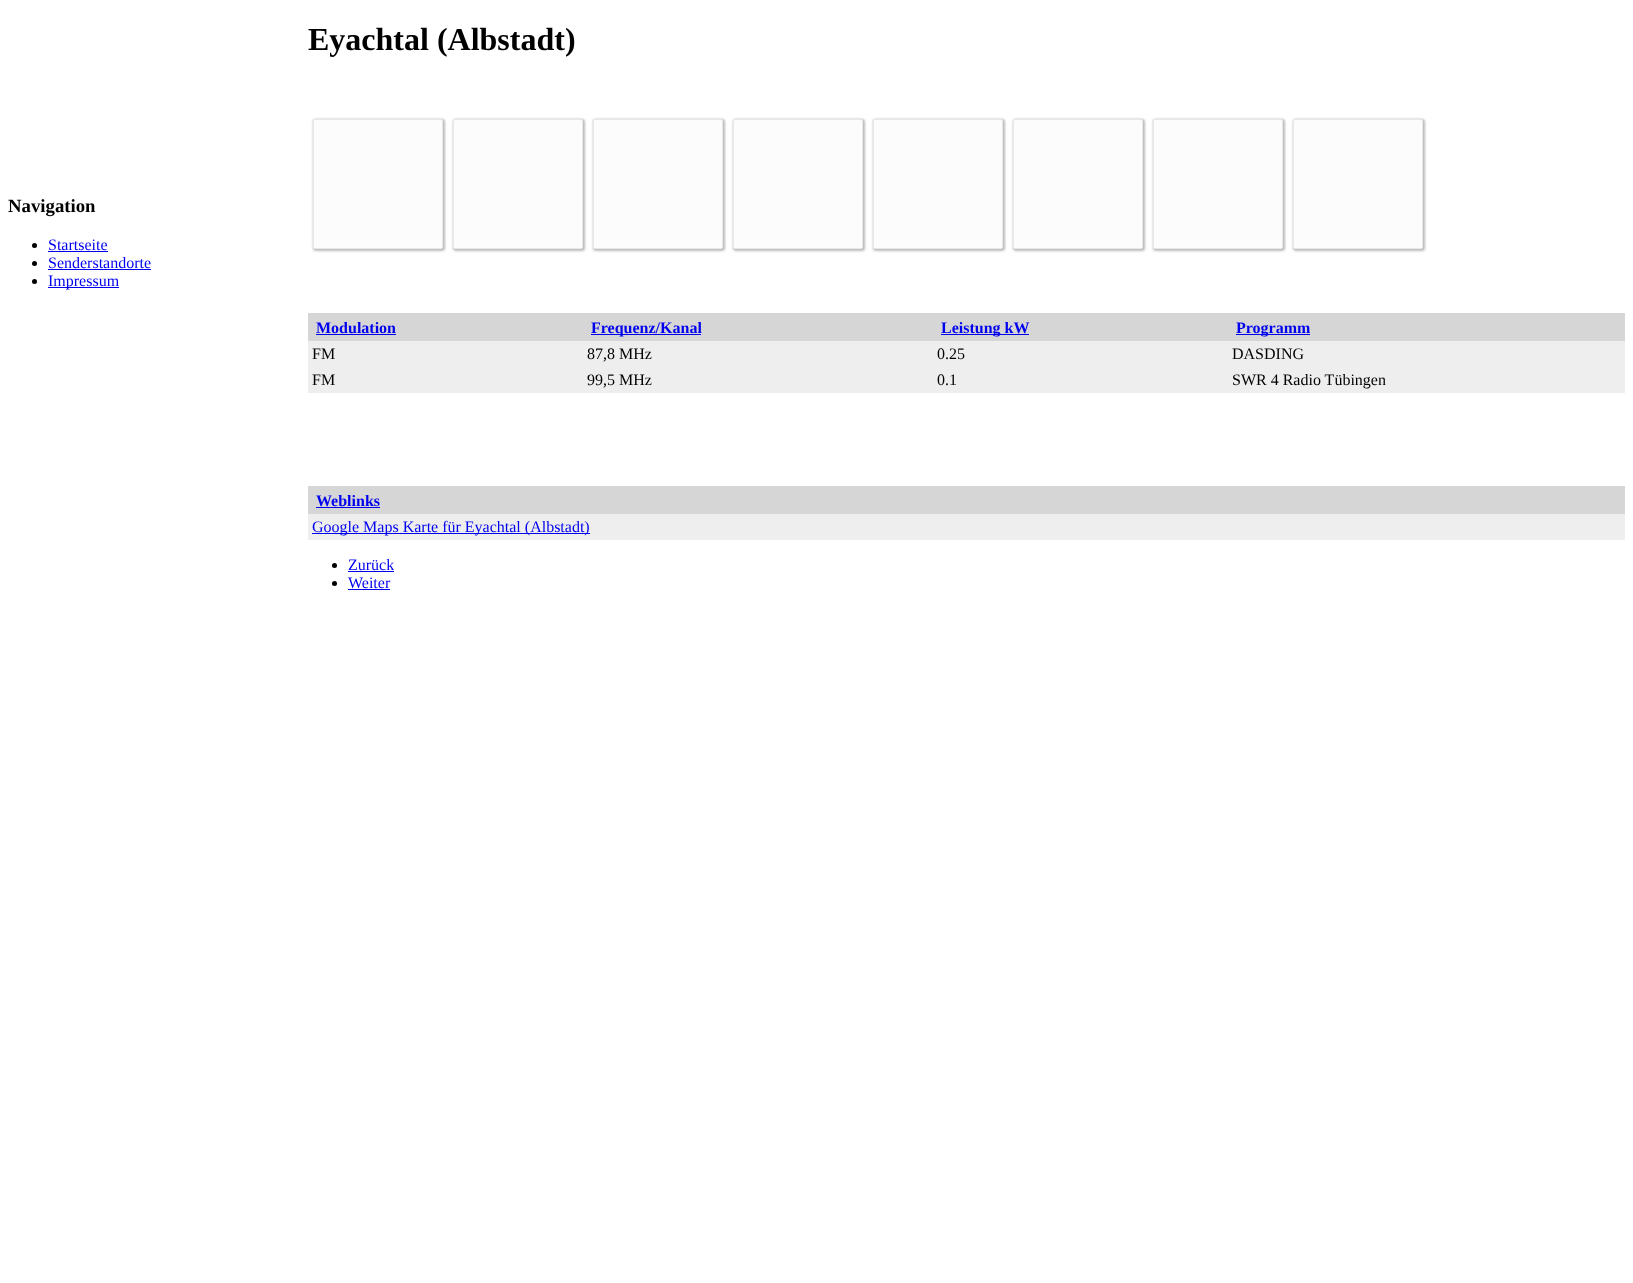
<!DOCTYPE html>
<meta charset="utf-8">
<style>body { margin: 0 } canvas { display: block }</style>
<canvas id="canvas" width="1633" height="1283"></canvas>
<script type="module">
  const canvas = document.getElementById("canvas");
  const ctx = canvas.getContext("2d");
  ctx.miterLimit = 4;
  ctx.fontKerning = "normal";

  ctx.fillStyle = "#ffffff";
  ctx.fillRect(0, 0, 1633, 1283);
  ctx.font = "bold 18.75px Liberation Serif";
  ctx.fillStyle = "#000000";
  ctx.fillText("Navigation", 8, 212);
  ctx.beginPath();
  ctx.arc(34.5, 245.5, 2.5, 0, Math.PI * 2);
  ctx.fill();
  ctx.font = "16px Liberation Serif";
  ctx.fillStyle = "#0000ee";
  ctx.fillText("Startseite", 48, 250);
  ctx.fillRect(48, 251, 60, 1);
  ctx.fillStyle = "#000000";
  ctx.beginPath();
  ctx.arc(34.5, 263.5, 2.5, 0, Math.PI * 2);
  ctx.fill();
  ctx.fillStyle = "#0000ee";
  ctx.fillText("Senderstandorte", 48, 268);
  ctx.fillRect(48, 269, 103, 1);
  ctx.fillStyle = "#000000";
  ctx.beginPath();
  ctx.arc(34.5, 281.5, 2.5, 0, Math.PI * 2);
  ctx.fill();
  ctx.fillStyle = "#0000ee";
  ctx.fillRect(48, 287, 71, 1);
  ctx.fillText("Impressum", 48, 286);
  ctx.font = "bold 32px Liberation Serif";
  ctx.fillStyle = "#000000";
  ctx.fillText("Eyachtal (Albstadt)", 308, 50);
  ctx.fillStyle = "rgba(120, 120, 120, 0.5)";
  ctx.filter = "blur(1px)";
  ctx.beginPath();
  ctx.roundRect(313, 119, 132, 132, 3);
  ctx.fill();
  ctx.filter = "none";
  ctx.fillStyle = "#fcfcfc";
  ctx.beginPath();
  ctx.roundRect(313.5, 119.5, 129, 129, 1.5);
  ctx.fill();
  ctx.strokeStyle = "#e8e8e8";
  ctx.stroke();
  ctx.fillStyle = "rgba(120, 120, 120, 0.5)";
  ctx.filter = "blur(1px)";
  ctx.beginPath();
  ctx.roundRect(453, 119, 132, 132, 3);
  ctx.fill();
  ctx.filter = "none";
  ctx.fillStyle = "#fcfcfc";
  ctx.beginPath();
  ctx.roundRect(453.5, 119.5, 129, 129, 1.5);
  ctx.fill();
  ctx.stroke();
  ctx.fillStyle = "rgba(120, 120, 120, 0.5)";
  ctx.filter = "blur(1px)";
  ctx.beginPath();
  ctx.roundRect(593, 119, 132, 132, 3);
  ctx.fill();
  ctx.filter = "none";
  ctx.fillStyle = "#fcfcfc";
  ctx.beginPath();
  ctx.roundRect(593.5, 119.5, 129, 129, 1.5);
  ctx.fill();
  ctx.stroke();
  ctx.fillStyle = "rgba(120, 120, 120, 0.5)";
  ctx.filter = "blur(1px)";
  ctx.beginPath();
  ctx.roundRect(733, 119, 132, 132, 3);
  ctx.fill();
  ctx.filter = "none";
  ctx.fillStyle = "#fcfcfc";
  ctx.beginPath();
  ctx.roundRect(733.5, 119.5, 129, 129, 1.5);
  ctx.fill();
  ctx.stroke();
  ctx.fillStyle = "rgba(120, 120, 120, 0.5)";
  ctx.filter = "blur(1px)";
  ctx.beginPath();
  ctx.roundRect(873, 119, 132, 132, 3);
  ctx.fill();
  ctx.filter = "none";
  ctx.fillStyle = "#fcfcfc";
  ctx.beginPath();
  ctx.roundRect(873.5, 119.5, 129, 129, 1.5);
  ctx.fill();
  ctx.stroke();
  ctx.fillStyle = "rgba(120, 120, 120, 0.5)";
  ctx.filter = "blur(1px)";
  ctx.beginPath();
  ctx.roundRect(1013, 119, 132, 132, 3);
  ctx.fill();
  ctx.filter = "none";
  ctx.fillStyle = "#fcfcfc";
  ctx.beginPath();
  ctx.roundRect(1013.5, 119.5, 129, 129, 1.5);
  ctx.fill();
  ctx.stroke();
  ctx.fillStyle = "rgba(120, 120, 120, 0.5)";
  ctx.filter = "blur(1px)";
  ctx.beginPath();
  ctx.roundRect(1153, 119, 132, 132, 3);
  ctx.fill();
  ctx.filter = "none";
  ctx.fillStyle = "#fcfcfc";
  ctx.beginPath();
  ctx.roundRect(1153.5, 119.5, 129, 129, 1.5);
  ctx.fill();
  ctx.stroke();
  ctx.fillStyle = "rgba(120, 120, 120, 0.5)";
  ctx.filter = "blur(1px)";
  ctx.beginPath();
  ctx.roundRect(1293, 119, 132, 132, 3);
  ctx.fill();
  ctx.filter = "none";
  ctx.fillStyle = "#fcfcfc";
  ctx.beginPath();
  ctx.roundRect(1293.5, 119.5, 129, 129, 1.5);
  ctx.fill();
  ctx.stroke();
  ctx.fillStyle = "#d6d6d6";
  ctx.fillRect(308, 313, 1317, 28);
  ctx.font = "bold 16px Liberation Serif";
  ctx.fillStyle = "#0000ee";
  ctx.fillText("Modulation", 316, 333);
  ctx.fillRect(316, 334, 80, 1);
  ctx.fillRect(591, 334, 110, 1);
  ctx.fillText("Frequenz/Kanal", 591, 333);
  ctx.fillRect(941, 334, 88, 1);
  ctx.fillText("Leistung kW", 941, 333);
  ctx.fillRect(1236, 334, 74, 1);
  ctx.fillText("Programm", 1236, 333);
  ctx.fillStyle = "#eeeeee";
  ctx.fillRect(308, 341, 1317, 52);
  ctx.font = "16px Liberation Serif";
  ctx.fillStyle = "#000000";
  ctx.fillText("FM", 312, 359);
  ctx.fillText("87,8 MHz", 587, 359);
  ctx.fillText("0.25", 937, 359);
  ctx.fillText("DASDING", 1232, 359);
  ctx.fillText("FM", 312, 385);
  ctx.fillText("99,5 MHz", 587, 385);
  ctx.fillText("0.1", 937, 385);
  ctx.fillText("SWR 4 Radio Tübingen", 1232, 385);
  ctx.fillStyle = "#d6d6d6";
  ctx.fillRect(308, 486, 1317, 28);
  ctx.font = "bold 16px Liberation Serif";
  ctx.fillStyle = "#0000ee";
  ctx.fillText("Weblinks", 316, 506);
  ctx.fillRect(316, 507, 64, 1);
  ctx.fillStyle = "#eeeeee";
  ctx.fillRect(308, 514, 1317, 26);
  ctx.fillStyle = "#0000ee";
  ctx.fillRect(312, 533, 278, 1);
  ctx.font = "16px Liberation Serif";
  ctx.fillText("Google Maps Karte für Eyachtal (Albstadt)", 312, 532);
  ctx.fillStyle = "#000000";
  ctx.beginPath();
  ctx.arc(334.5, 565.5, 2.5, 0, Math.PI * 2);
  ctx.fill();
  ctx.fillStyle = "#0000ee";
  ctx.fillText("Zurück", 348, 570);
  ctx.fillRect(348, 571, 46, 1);
  ctx.fillStyle = "#000000";
  ctx.beginPath();
  ctx.arc(334.5, 583.5, 2.5, 0, Math.PI * 2);
  ctx.fill();
  ctx.fillStyle = "#0000ee";
  ctx.fillText("Weiter", 348, 588);
  ctx.fillRect(348, 589, 42, 1);
</script>
